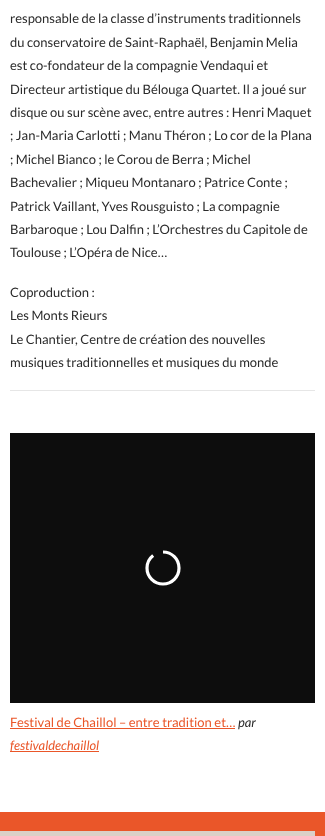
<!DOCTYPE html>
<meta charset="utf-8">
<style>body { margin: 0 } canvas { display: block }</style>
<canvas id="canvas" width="325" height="836"></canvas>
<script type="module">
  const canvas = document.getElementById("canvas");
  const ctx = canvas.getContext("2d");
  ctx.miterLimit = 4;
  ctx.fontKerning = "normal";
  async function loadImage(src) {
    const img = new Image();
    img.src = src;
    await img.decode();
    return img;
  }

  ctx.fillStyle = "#ffffff";
  ctx.fillRect(0, 0, 325, 836);
  ctx.font = "13px Lato";
  ctx.fillStyle = "#2b2b2b";
  ctx.fillText("responsable de la classe d’instruments traditionnels", 10, 23);
  ctx.fillText("du conservatoire de Saint-Raphaël, Benjamin Melia", 10, 47);
  ctx.fillText("est co-fondateur de la compagnie Vendaqui et", 10, 70);
  ctx.fillText("Directeur artistique du Bélouga Quartet. Il a joué sur", 10, 94);
  ctx.fillText("disque ou sur scène avec, entre autres : Henri Maquet", 10, 117);
  ctx.fillText("; Jan-Maria Carlotti ; Manu Théron ; Lo cor de la Plana", 10, 140);
  ctx.fillText("; Michel Bianco ; le Corou de Berra ; Michel", 10, 164);
  ctx.fillText("Bachevalier ; Miqueu Montanaro ; Patrice Conte ;", 10, 187);
  ctx.fillText("Patrick Vaillant, Yves Rousguisto ; La compagnie", 10, 211);
  ctx.fillText("Barbaroque ; Lou Dalfin ; L’Orchestres du Capitole de", 10, 234);
  ctx.fillText("Toulouse ; L’Opéra de Nice…", 10, 257);
  ctx.fillText("Coproduction :", 10, 297);
  ctx.fillText("Les Monts Rieurs", 10, 320);
  ctx.fillText("Le Chantier, Centre de création des nouvelles", 10, 344);
  ctx.fillText("musiques traditionnelles et musiques du monde", 10, 367);
  ctx.fillStyle = "#e6e6e6";
  ctx.fillRect(10, 390, 305, 1);
  ctx.drawImage(await loadImage("img1.png"), 10, 433, 305, 270);
  ctx.fillStyle = "#ea5629";
  ctx.fillText("Festival de Chaillol – entre tradition et…", 10, 727);
  ctx.fillRect(10, 728, 225, 1);
  ctx.font = "italic 13px Lato";
  ctx.fillStyle = "#2b2b2b";
  ctx.fillText("par", 238, 727);
  ctx.fillStyle = "#ea5629";
  ctx.fillRect(10, 751, 89, 1);
  ctx.fillText("festivaldechaillol", 10, 750);
  ctx.fillRect(0, 812, 325, 24);
  ctx.fillStyle = "#dbd0c8";
  ctx.fillRect(0, 831, 315, 5);
</script>
